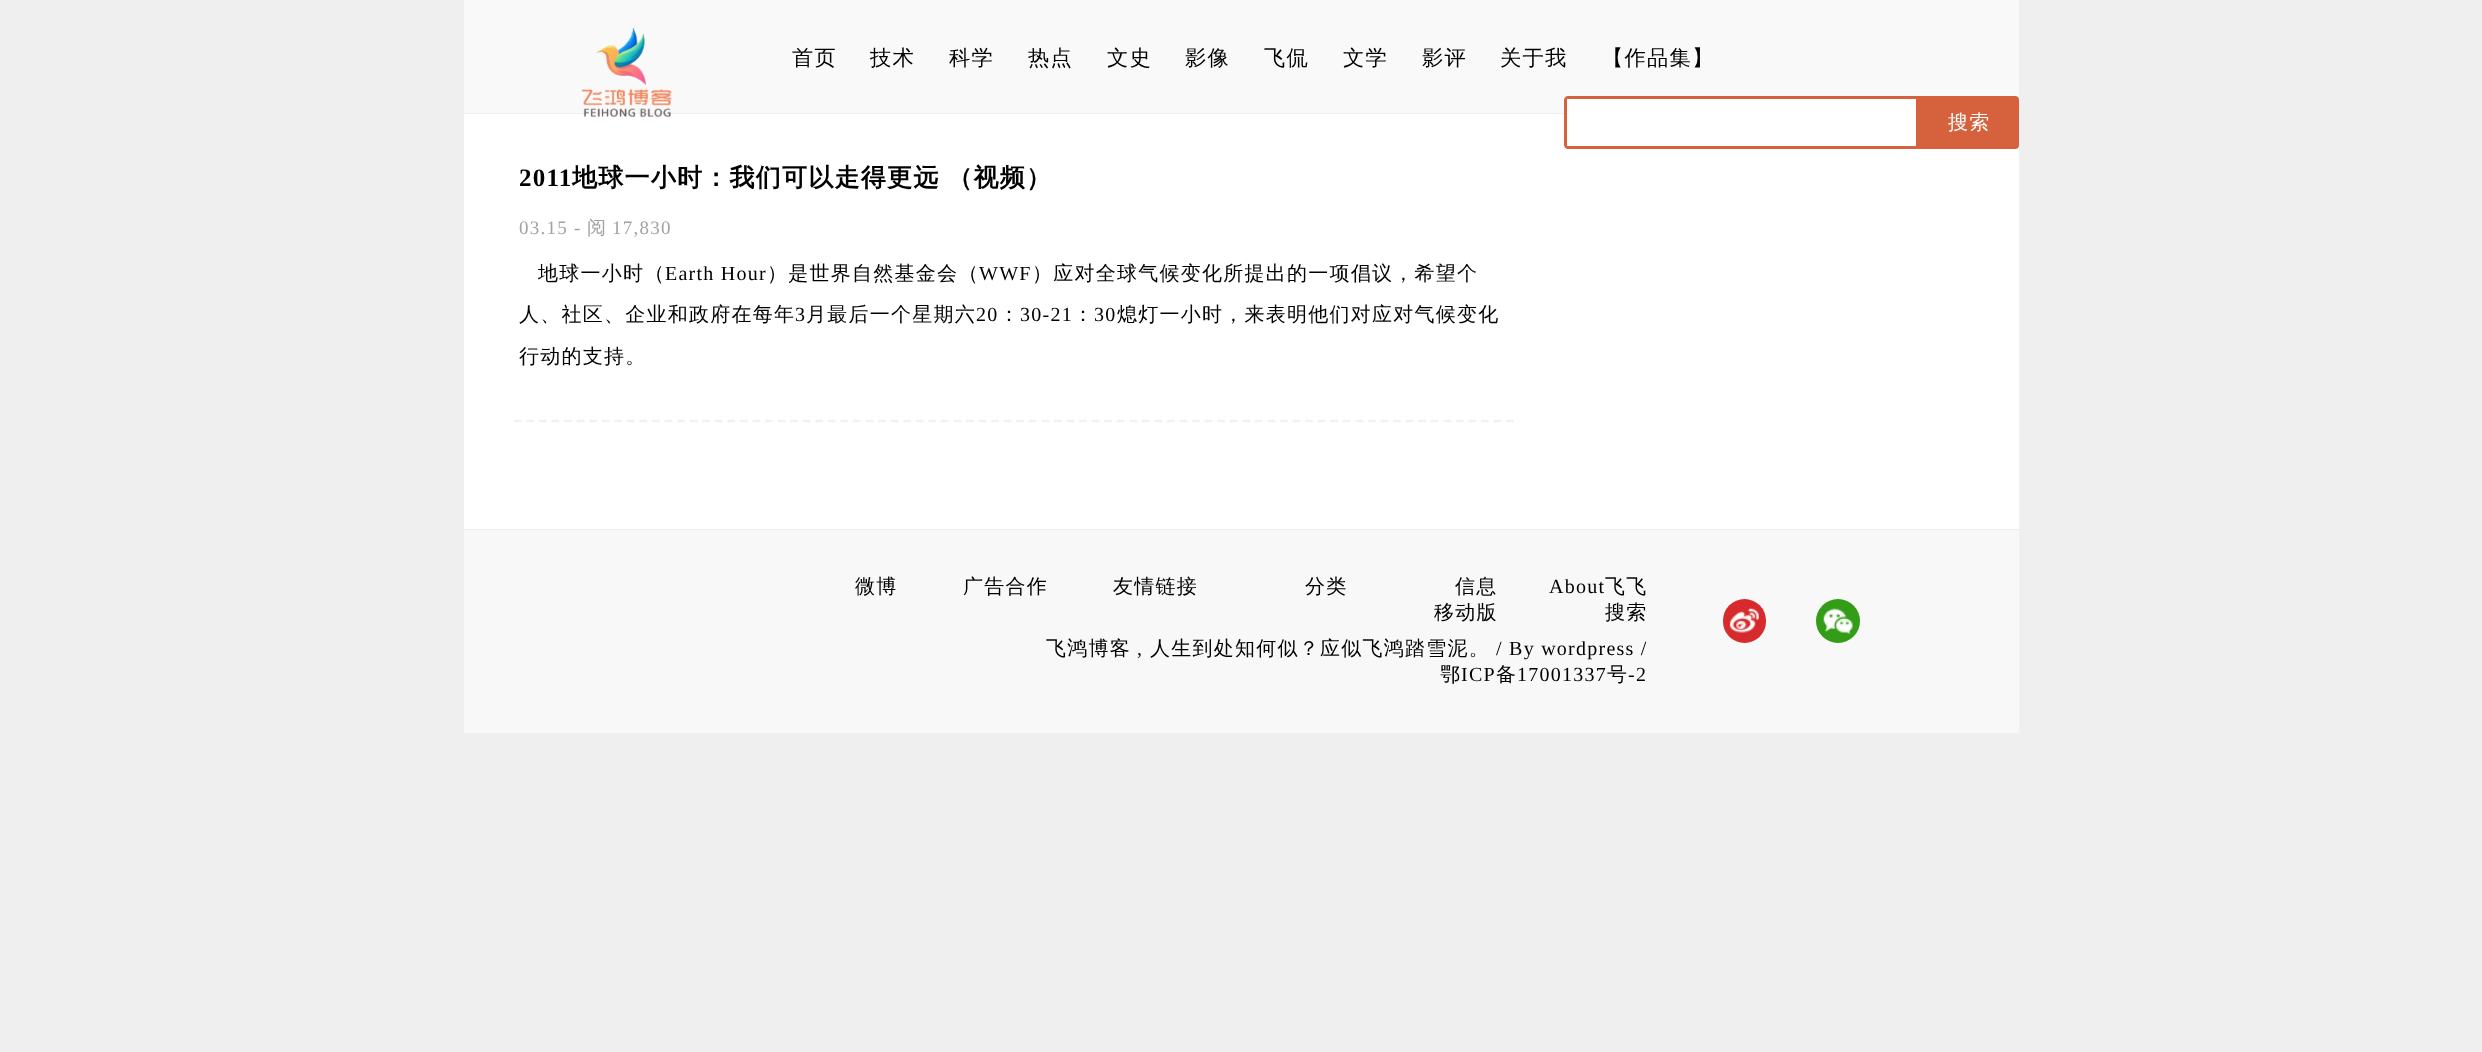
<!DOCTYPE html>
<meta charset="utf-8">
<style>body { margin: 0 } canvas { display: block }</style>
<canvas id="canvas" width="2482" height="1052"></canvas>
<script type="module">
  const canvas = document.getElementById("canvas");
  const ctx = canvas.getContext("2d");
  ctx.miterLimit = 4;
  ctx.fontKerning = "normal";
  async function loadImage(src) {
    const img = new Image();
    img.src = src;
    await img.decode();
    return img;
  }

  ctx.fillStyle = "#efefef";
  ctx.fillRect(0, 0, 2482, 1052);
  ctx.fillStyle = "#f9f9f9";
  ctx.fillRect(464, 0, 1555, 113);
  ctx.fillStyle = "#ffffff";
  ctx.fillRect(464, 114, 1555, 415);
  ctx.drawImage(await loadImage("img1.png"), 581, 27, 91, 91);
  ctx.letterSpacing = "1.25px";
  ctx.font = "500 21.25px WenQuanYi Zen Hei";
  ctx.fillStyle = "#000000";
  ctx.fillText("首页", 792, 65);
  ctx.fillText("技术", 870, 65);
  ctx.fillText("科学", 949, 65);
  ctx.fillText("热点", 1028, 65);
  ctx.fillText("文史", 1107, 65);
  ctx.fillText("影像", 1185, 65);
  ctx.fillText("飞侃", 1264, 65);
  ctx.fillText("文学", 1343, 65);
  ctx.fillText("影评", 1422, 65);
  ctx.fillText("关于我", 1500, 65);
  ctx.fillText("【作品集】", 1602, 65);
  ctx.fillStyle = "#ffffff";
  ctx.beginPath();
  ctx.roundRect(1564, 96, 355, 53, [4, 0, 0, 4]);
  ctx.fill();
  ctx.fillStyle = "#d6623d";
  ctx.beginPath();
  ctx.moveTo(1568, 96);
  ctx.bezierCurveTo(1566, 96, 1564, 98, 1564, 100);
  ctx.lineTo(1564, 145);
  ctx.bezierCurveTo(1564, 147, 1566, 149, 1568, 149);
  ctx.lineTo(1919, 149);
  ctx.lineTo(1919, 96);
  ctx.closePath();
  ctx.moveTo(1567, 99);
  ctx.lineTo(1567, 146);
  ctx.lineTo(1916, 146);
  ctx.lineTo(1916, 99);
  ctx.closePath();
  ctx.fill("evenodd");
  ctx.beginPath();
  ctx.roundRect(1919, 96, 100, 53, [0, 4, 4, 0]);
  ctx.fill();
  ctx.font = "500 20px WenQuanYi Zen Hei";
  ctx.fillStyle = "#ffffff";
  ctx.fillText("搜索", 1948, 129);
  ctx.beginPath();
  ctx.moveTo(514, 421);
  ctx.lineTo(1514, 421);
  ctx.strokeStyle = "#f1f1f1";
  ctx.lineWidth = 2.5;
  ctx.setLineDash([7.5, 5.06]);
  ctx.stroke();
  ctx.font = "bold 25px Liberation Serif";
  ctx.fillStyle = "#000000";
  ctx.fillText("2011", 519, 186);
  ctx.wordSpacing = "-1px";
  ctx.font = "bold 25px WenQuanYi Zen Hei";
  ctx.fillText("地球一小时：我们可以走得更远 （视频）", 572, 186);
  ctx.wordSpacing = "0px";
  ctx.font = "19px Liberation Serif";
  ctx.fillStyle = "#a2a2a2";
  ctx.fillText("03.15 -", 519, 234);
  ctx.font = "500 19px WenQuanYi Zen Hei";
  ctx.fillText("阅", 587, 234);
  ctx.font = "19px Liberation Serif";
  ctx.fillText("17,830", 612, 234);
  ctx.font = "500 20px WenQuanYi Zen Hei";
  ctx.fillStyle = "#000000";
  ctx.fillText("地球一小时（", 538, 280);
  ctx.font = "20px Liberation Serif";
  ctx.fillText("Earth Hour", 665, 280);
  ctx.font = "500 20px WenQuanYi Zen Hei";
  ctx.fillText("）是世界自然基金会（", 767, 280);
  ctx.font = "20px Liberation Serif";
  ctx.fillText("WWF", 979, 280);
  ctx.font = "500 20px WenQuanYi Zen Hei";
  ctx.fillText("）应对全球气候变化所提出的一项倡议，希望个", 1032, 280);
  ctx.fillText("人、社区、企业和政府在每年", 519, 321);
  ctx.font = "20px Liberation Serif";
  ctx.fillText("3", 795, 321);
  ctx.font = "500 20px WenQuanYi Zen Hei";
  ctx.fillText("月最后一个星期六", 806, 321);
  ctx.font = "20px Liberation Serif";
  ctx.fillText("20", 976, 321);
  ctx.font = "500 20px WenQuanYi Zen Hei";
  ctx.fillText("：", 999, 321);
  ctx.font = "20px Liberation Serif";
  ctx.fillText("30-21", 1020, 321);
  ctx.font = "500 20px WenQuanYi Zen Hei";
  ctx.fillText("：", 1073, 321);
  ctx.font = "20px Liberation Serif";
  ctx.fillText("30", 1094, 321);
  ctx.font = "500 20px WenQuanYi Zen Hei";
  ctx.fillText("熄灯一小时，来表明他们对应对气候变化", 1117, 321);
  ctx.fillText("行动的支持。", 519, 363);
  ctx.fillStyle = "#f8f8f8";
  ctx.fillRect(464, 530, 1555, 203);
  ctx.fillStyle = "#000000";
  ctx.fillText("微博", 855, 593);
  ctx.fillText("广告合作", 963, 593);
  ctx.fillText("友情链接", 1113, 593);
  ctx.fillText("分类", 1305, 593);
  ctx.fillText("信息", 1455, 593);
  ctx.font = "20px Liberation Serif";
  ctx.fillText("About", 1549, 593);
  ctx.font = "500 20px WenQuanYi Zen Hei";
  ctx.fillText("飞飞", 1605, 593);
  ctx.fillText("移动版", 1434, 619);
  ctx.fillText("搜索", 1605, 619);
  ctx.fillText("飞鸿博客", 1046, 655);
  ctx.font = "20px Liberation Serif";
  ctx.fillText(",", 1137, 655);
  ctx.font = "500 20px WenQuanYi Zen Hei";
  ctx.fillText("人生到处知何似？应似飞鸿踏雪泥。", 1150, 655);
  ctx.font = "20px Liberation Serif";
  ctx.fillText("/ By wordpress /", 1496, 655);
  ctx.font = "500 20px WenQuanYi Zen Hei";
  ctx.fillText("鄂", 1440, 681);
  ctx.font = "20px Liberation Serif";
  ctx.fillText("ICP", 1461, 681);
  ctx.font = "500 20px WenQuanYi Zen Hei";
  ctx.fillText("备", 1496, 681);
  ctx.font = "20px Liberation Serif";
  ctx.fillText("17001337", 1517, 681);
  ctx.font = "500 20px WenQuanYi Zen Hei";
  ctx.fillText("号", 1607, 681);
  ctx.font = "20px Liberation Serif";
  ctx.fillText("-2", 1628, 681);
  ctx.fillStyle = "#d72a2c";
  ctx.beginPath();
  ctx.roundRect(1723, 599, 43, 44, 21.5);
  ctx.fill();
  ctx.drawImage(await loadImage("img2.png"), 1729, 608, 30, 25);
  ctx.fillStyle = "#339d17";
  ctx.beginPath();
  ctx.arc(1838, 621, 22, 0, Math.PI * 2);
  ctx.fill();
  ctx.drawImage(await loadImage("img3.png"), 1823, 608, 30, 26);
</script>
